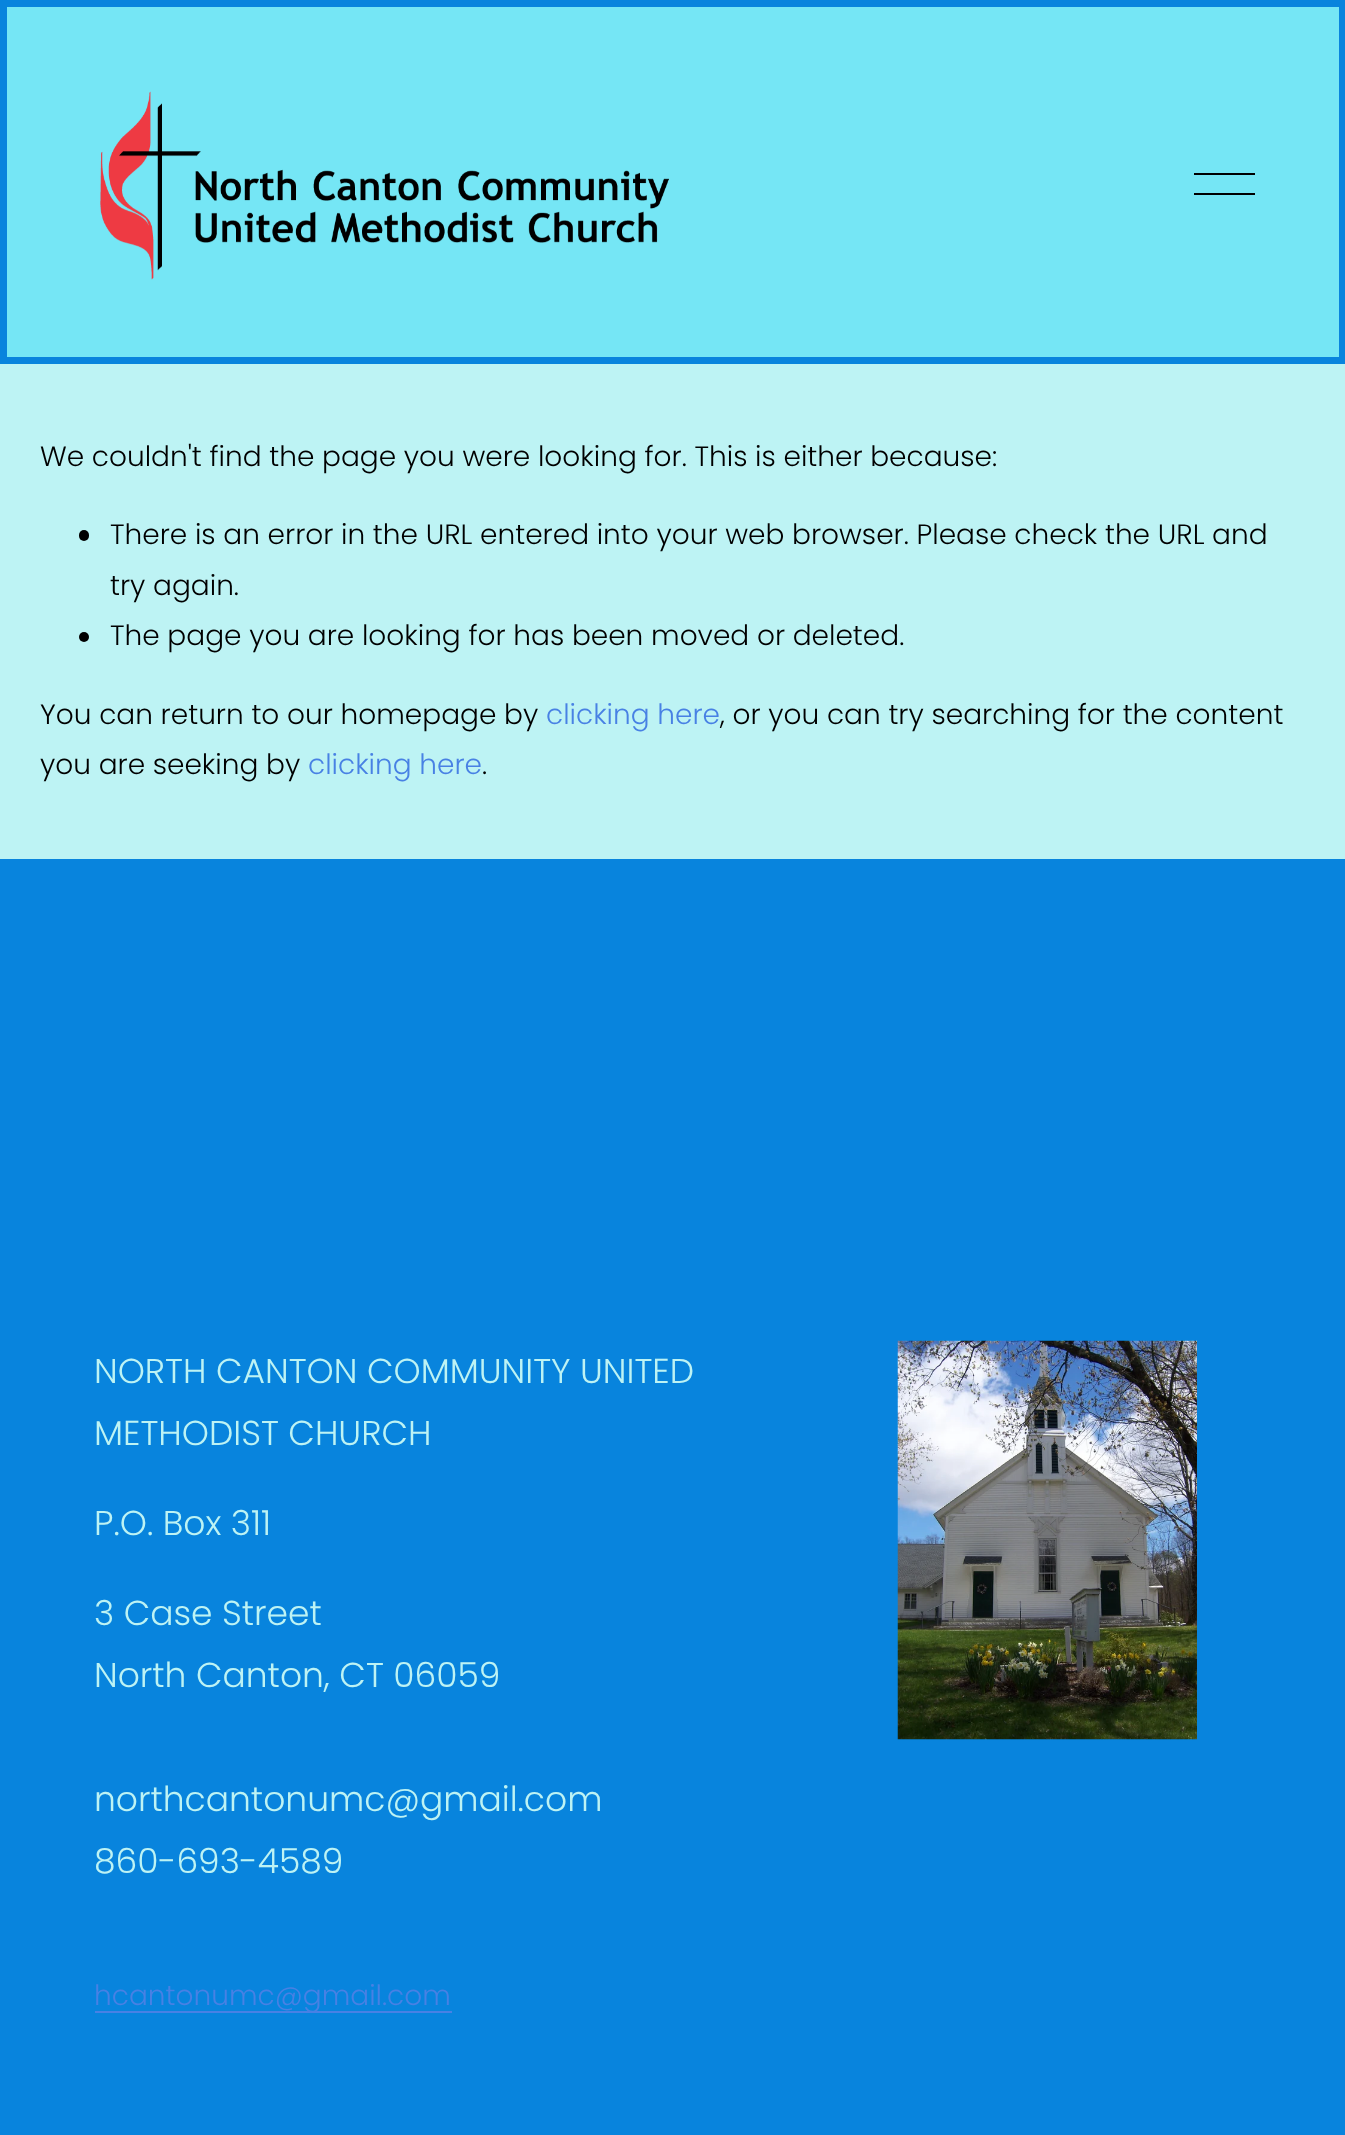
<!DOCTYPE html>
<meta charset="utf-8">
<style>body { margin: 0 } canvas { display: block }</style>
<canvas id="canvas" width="1345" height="2135"></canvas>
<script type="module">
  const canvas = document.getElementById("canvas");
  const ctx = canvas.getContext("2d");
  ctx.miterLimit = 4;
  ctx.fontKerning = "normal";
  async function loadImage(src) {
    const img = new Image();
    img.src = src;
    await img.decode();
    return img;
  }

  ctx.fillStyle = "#bdf3f4";
  ctx.fillRect(0, 0, 1345, 2135);
  ctx.fillStyle = "#75e6f5";
  ctx.beginPath();
  ctx.rect(3.5, 3.5, 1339, 357);
  ctx.fill();
  ctx.strokeStyle = "#0884dd";
  ctx.lineWidth = 7;
  ctx.stroke();
  ctx.drawImage(await loadImage("img1.png"), 100, 91, 569, 189);
  ctx.fillStyle = "#000000";
  ctx.fillRect(1194, 173, 61, 2);
  ctx.fillRect(1194, 193, 61, 2);
  ctx.font = "300 28px Poppins";
  ctx.fillText("We couldn't find the page you were looking for. This is either because:", 40, 466);
  ctx.beginPath();
  ctx.roundRect(79, 530, 10, 11, 5);
  ctx.fill();
  ctx.fillText("There is an error in the URL entered into your web browser. Please check the URL and", 110, 544);
  ctx.fillText("try again.", 110, 595);
  ctx.beginPath();
  ctx.arc(84, 637, 5, 0, Math.PI * 2);
  ctx.fill();
  ctx.fillText("The page you are looking for has been moved or deleted.", 110, 645);
  ctx.fillText("You can return to our homepage by", 40, 724);
  ctx.fillStyle = "#4881e4";
  ctx.fillText("clicking here", 546, 724);
  ctx.fillStyle = "#000000";
  ctx.fillText(", or you can try searching for the content", 720, 724);
  ctx.fillText("you are seeking by", 40, 774);
  ctx.fillStyle = "#4881e4";
  ctx.fillText("clicking here", 308, 774);
  ctx.fillStyle = "#000000";
  ctx.fillText(".", 482, 774);
  ctx.fillStyle = "#0884dd";
  ctx.fillRect(0, 859, 1345, 1276);
  ctx.font = "300 34.5px Poppins";
  ctx.fillStyle = "#bdf3f4";
  ctx.fillText("NORTH CANTON COMMUNITY UNITED", 94, 1383);
  ctx.fillText("METHODIST CHURCH", 94, 1445);
  ctx.fillText("P.O. Box 311", 94, 1535);
  ctx.fillText("3 Case Street", 94, 1625);
  ctx.fillText("North Canton, CT 06059", 94, 1687);
  ctx.fillText("northcantonumc@gmail.com", 94, 1811);
  ctx.fillText("860-693-4589", 94, 1873);
  ctx.fillStyle = "#4881e4";
  ctx.fillRect(95, 2011, 357, 2);
  ctx.font = "300 28px Poppins";
  ctx.fillText("hcantonumc@gmail.com", 94, 2005);
  ctx.drawImage(await loadImage("img2.png"), 897, 1340, 300, 400);
</script>
